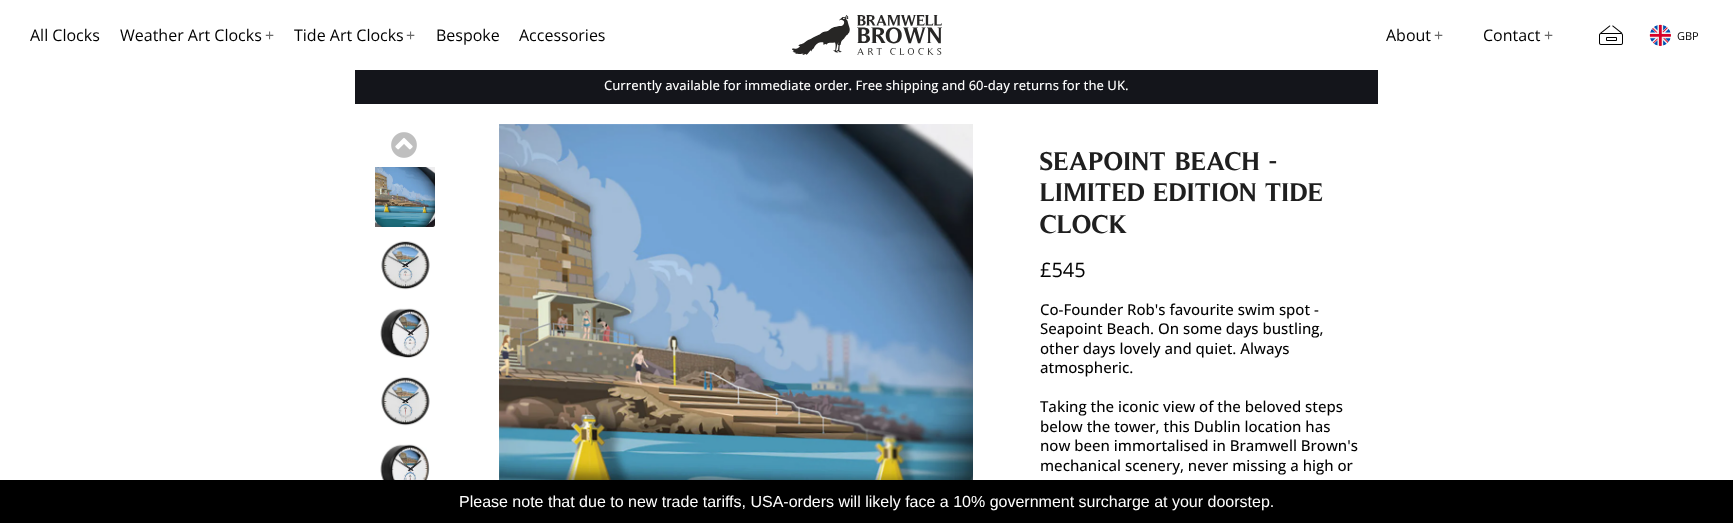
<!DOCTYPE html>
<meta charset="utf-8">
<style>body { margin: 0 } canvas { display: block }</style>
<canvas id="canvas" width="1733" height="523"></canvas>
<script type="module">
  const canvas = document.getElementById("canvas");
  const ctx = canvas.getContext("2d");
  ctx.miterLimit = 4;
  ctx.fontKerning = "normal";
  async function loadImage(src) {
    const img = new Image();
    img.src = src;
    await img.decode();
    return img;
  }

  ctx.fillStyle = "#ffffff";
  ctx.fillRect(0, 0, 1733, 523);
  ctx.font = "16px Open Sans";
  ctx.fillStyle = "#010101";
  ctx.fillText("All Clocks", 30, 41);
  ctx.fillText("Weather Art Clocks", 120, 41);
  ctx.fillStyle = "#6a6a6a";
  ctx.fillText("+", 265, 41);
  ctx.fillStyle = "#010101";
  ctx.fillText("Tide Art Clocks", 294, 41);
  ctx.fillStyle = "#6a6a6a";
  ctx.fillText("+", 406, 41);
  ctx.fillStyle = "#010101";
  ctx.fillText("Bespoke", 436, 41);
  ctx.fillText("Accessories", 519, 41);
  ctx.drawImage(await loadImage("img1.png"), 792, 15, 150, 40);
  ctx.fillText("About", 1386, 41);
  ctx.fillStyle = "#6a6a6a";
  ctx.fillText("+", 1434, 41);
  ctx.fillStyle = "#010101";
  ctx.fillText("Contact", 1483, 41);
  ctx.fillStyle = "#6a6a6a";
  ctx.fillText("+", 1544, 41);
  ctx.drawImage(await loadImage("img2.png"), 1599, 25, 24, 20);
  ctx.drawImage(await loadImage("img3.png"), 1649, 24, 22, 23);
  ctx.font = "11px Open Sans";
  ctx.fillStyle = "#010101";
  ctx.fillText("GBP", 1677, 40);
  ctx.fillStyle = "#14151b";
  ctx.fillRect(355, 70, 1023, 34);
  ctx.font = "500 13px Open Sans";
  ctx.fillStyle = "#ffffff";
  ctx.fillText("Currently available for immediate order. Free shipping and 60-day returns for the UK.", 604, 90);
  ctx.drawImage(await loadImage("img4.png"), 391, 132, 26, 26);
  ctx.drawImage(await loadImage("img5.png"), 375, 167, 60, 60);
  ctx.drawImage(await loadImage("img6.png"), 381, 241, 49, 49);
  ctx.drawImage(await loadImage("img7.png"), 380, 308, 50, 50);
  ctx.drawImage(await loadImage("img8.png"), 381, 377, 49, 49);
  ctx.drawImage(await loadImage("img9.png"), 380, 444, 50, 36);
  ctx.drawImage(await loadImage("img10.png"), 499, 124, 474, 356);
  ctx.wordSpacing = "1px";
  ctx.font = "bold 26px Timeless";
  ctx.fillStyle = "#1f1f1f";
  ctx.fillText("SEAPOINT BEACH -", 1040, 170);
  ctx.wordSpacing = "0px";
  ctx.fillText("LIMITED EDITION TIDE", 1040, 201);
  ctx.fillText("CLOCK", 1040, 233);
  ctx.font = "20px Open Sans";
  ctx.fillStyle = "#010101";
  ctx.fillText("£545", 1040, 277);
  ctx.font = "500 15px Open Sans";
  ctx.fillText("Co-Founder Rob's favourite swim spot -", 1040, 315);
  ctx.fillText("Seapoint Beach. On some days bustling,", 1040, 334);
  ctx.fillText("other days lovely and quiet. Always", 1040, 354);
  ctx.fillText("atmospheric.", 1040, 373);
  ctx.fillText("Taking the iconic view of the beloved steps", 1040, 412);
  ctx.fillText("below the tower, this Dublin location has", 1040, 432);
  ctx.fillText("now been immortalised in Bramwell Brown's", 1040, 451);
  ctx.fillText("mechanical scenery, never missing a high or", 1040, 471);
  ctx.fillStyle = "#000000";
  ctx.fillRect(0, 480, 1733, 43);
  ctx.font = "16px Liberation Sans";
  ctx.fillStyle = "#ffffff";
  ctx.fillText("Please note that due to new trade tariffs, USA-orders will likely face a 10% government surcharge at your doorstep.", 459, 507);
</script>
